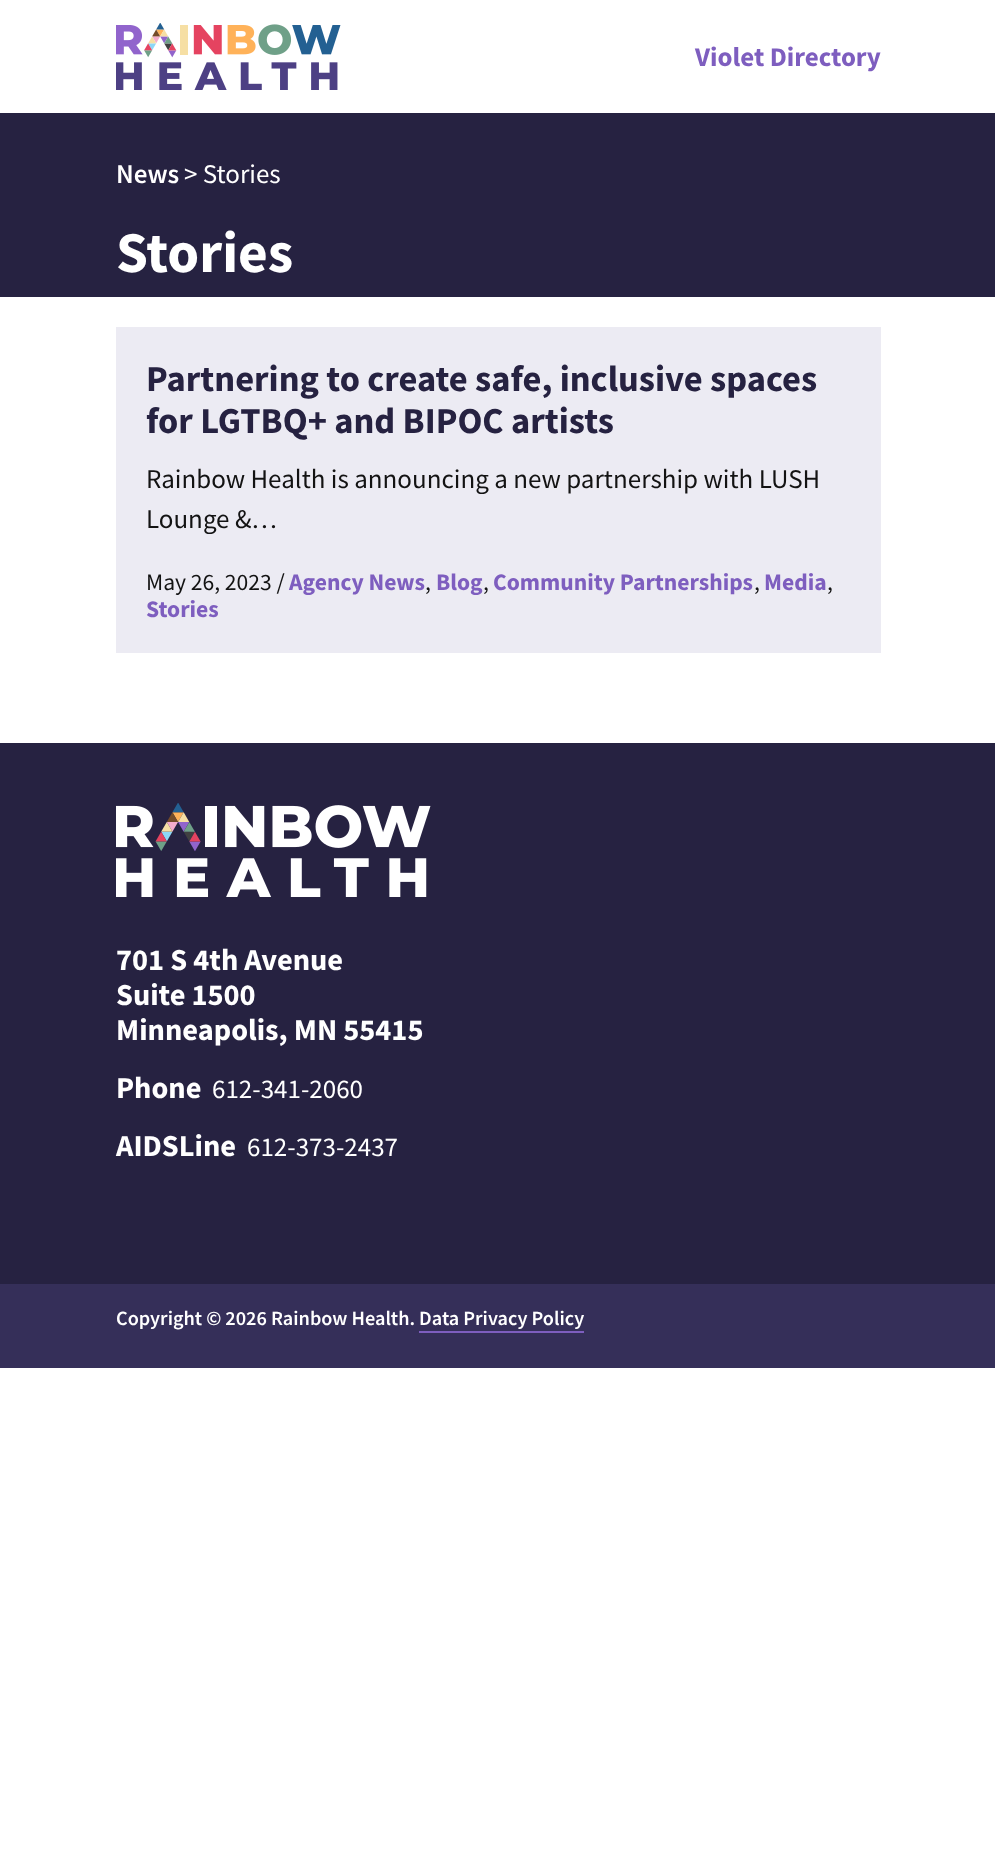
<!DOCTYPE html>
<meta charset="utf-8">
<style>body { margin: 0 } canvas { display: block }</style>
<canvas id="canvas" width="995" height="1865"></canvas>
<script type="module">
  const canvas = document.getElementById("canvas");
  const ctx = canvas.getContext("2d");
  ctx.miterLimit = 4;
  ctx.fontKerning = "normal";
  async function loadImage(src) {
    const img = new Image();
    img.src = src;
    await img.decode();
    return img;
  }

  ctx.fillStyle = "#ffffff";
  ctx.fillRect(0, 0, 995, 1865);
  ctx.drawImage(await loadImage("img1.png"), 116, 23, 225, 67);
  ctx.font = "bold 27px Source Sans Pro";
  ctx.fillStyle = "#7e5ebf";
  ctx.fillText("Violet Directory", 695, 66);
  ctx.fillStyle = "#262241";
  ctx.fillRect(0, 113, 995, 184);
  ctx.font = "600 27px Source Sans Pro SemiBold";
  ctx.fillStyle = "#ffffff";
  ctx.fillText("News", 116, 183);
  ctx.font = "27px Source Sans Pro";
  ctx.fillText("> Stories", 184, 183);
  ctx.font = "bold 57.5px Source Sans Pro";
  ctx.fillText("Stories", 116, 272);
  ctx.fillStyle = "#ecebf3";
  ctx.fillRect(116, 327, 765, 326);
  ctx.font = "bold 36.5px Source Sans Pro";
  ctx.fillStyle = "#262241";
  ctx.fillText("Partnering to create safe, inclusive spaces", 146, 391);
  ctx.fillText("for LGTBQ+ and BIPOC artists", 146, 433);
  ctx.font = "27px Source Sans Pro";
  ctx.fillStyle = "#131313";
  ctx.fillText("Rainbow Health is announcing a new partnership with LUSH", 146, 488);
  ctx.fillText("Lounge &…", 146, 528);
  ctx.font = "23.6px Source Sans Pro";
  ctx.fillText("May 26, 2023 /", 146, 590);
  ctx.font = "bold 23.6px Source Sans Pro";
  ctx.fillStyle = "#7e5ebf";
  ctx.fillText("Agency News", 289, 590);
  ctx.font = "23.6px Source Sans Pro";
  ctx.fillStyle = "#131313";
  ctx.fillText(",", 425, 590);
  ctx.font = "bold 23.6px Source Sans Pro";
  ctx.fillStyle = "#7e5ebf";
  ctx.fillText("Blog", 436, 590);
  ctx.font = "23.6px Source Sans Pro";
  ctx.fillStyle = "#131313";
  ctx.fillText(",", 483, 590);
  ctx.font = "bold 23.6px Source Sans Pro";
  ctx.fillStyle = "#7e5ebf";
  ctx.fillText("Community Partnerships", 493, 590);
  ctx.font = "23.6px Source Sans Pro";
  ctx.fillStyle = "#131313";
  ctx.fillText(",", 754, 590);
  ctx.font = "bold 23.6px Source Sans Pro";
  ctx.fillStyle = "#7e5ebf";
  ctx.fillText("Media", 764, 590);
  ctx.font = "23.6px Source Sans Pro";
  ctx.fillStyle = "#131313";
  ctx.fillText(",", 827, 590);
  ctx.font = "bold 23.6px Source Sans Pro";
  ctx.fillStyle = "#7e5ebf";
  ctx.fillText("Stories", 146, 617);
  ctx.fillStyle = "#262241";
  ctx.fillRect(0, 743, 995, 541);
  ctx.drawImage(await loadImage("img2.png"), 116, 803, 315, 94);
  ctx.font = "bold 30.4px Source Sans Pro";
  ctx.fillStyle = "#ffffff";
  ctx.fillText("701 S 4th Avenue", 116, 970);
  ctx.fillText("Suite 1500", 116, 1005);
  ctx.fillText("Minneapolis, MN 55415", 116, 1040);
  ctx.fillText("Phone", 116, 1098);
  ctx.font = "27px Source Sans Pro";
  ctx.fillText("612-341-2060", 212, 1098);
  ctx.font = "bold 30.4px Source Sans Pro";
  ctx.fillText("AIDSLine", 116, 1156);
  ctx.font = "27px Source Sans Pro";
  ctx.fillText("612-373-2437", 247, 1156);
  ctx.fillStyle = "#352f59";
  ctx.fillRect(0, 1284, 995, 84);
  ctx.font = "600 20.25px Source Sans Pro SemiBold";
  ctx.fillStyle = "#ffffff";
  ctx.fillText("Copyright © 2026 Rainbow Health. Data Privacy Policy", 116, 1325);
  ctx.fillStyle = "#7e5ebf";
  ctx.fillRect(419, 1331, 165, 2);
</script>
